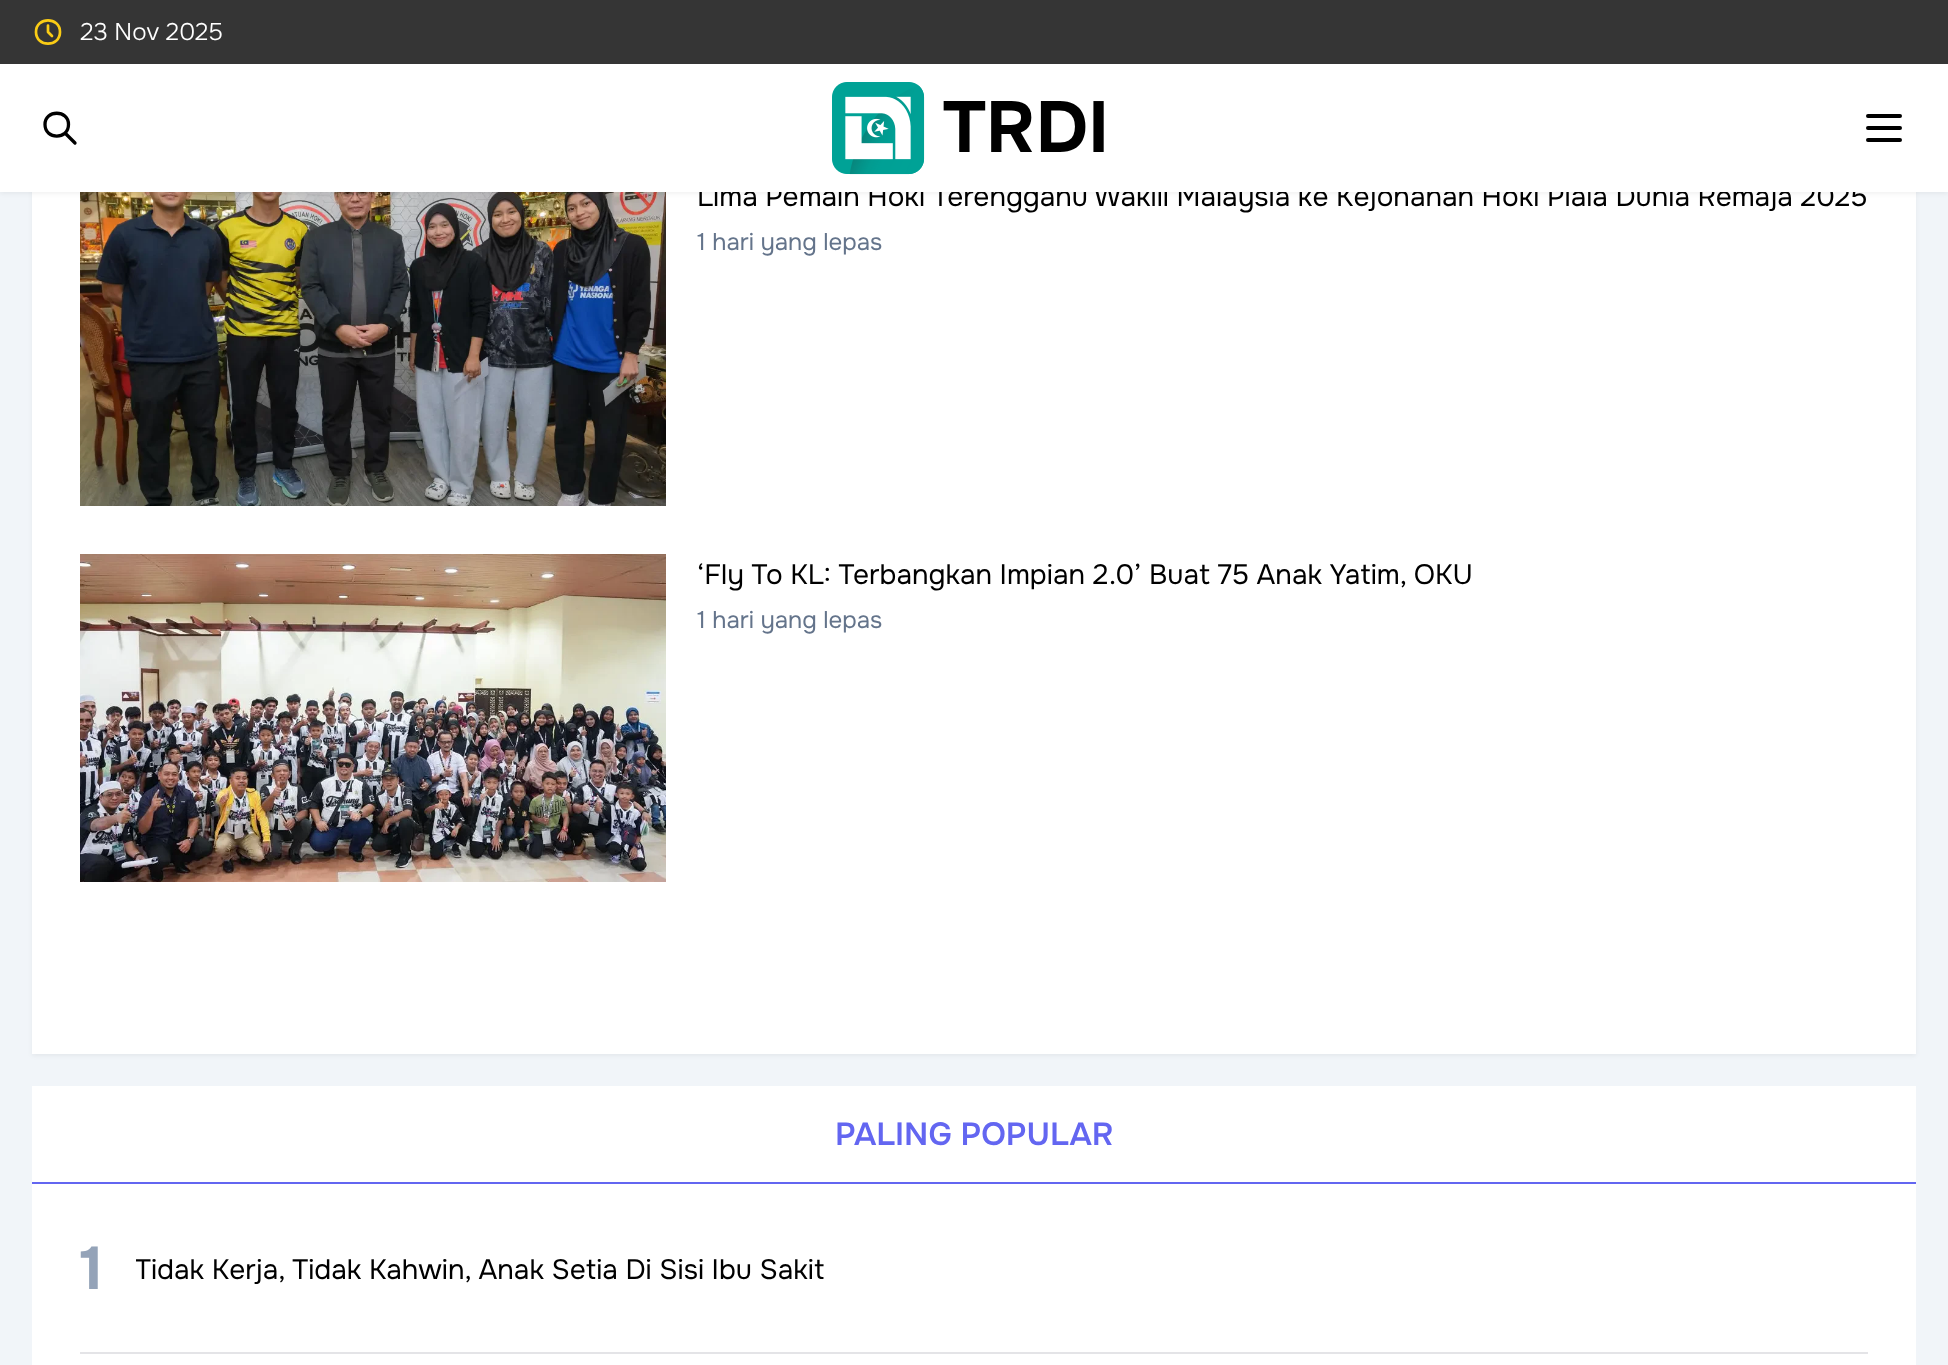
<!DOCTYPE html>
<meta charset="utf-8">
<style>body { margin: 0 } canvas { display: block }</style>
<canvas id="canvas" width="1948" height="1365"></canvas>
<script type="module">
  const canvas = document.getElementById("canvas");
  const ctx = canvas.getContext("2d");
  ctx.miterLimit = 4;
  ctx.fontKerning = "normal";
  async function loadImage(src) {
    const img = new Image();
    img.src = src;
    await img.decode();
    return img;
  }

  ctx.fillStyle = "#f1f5f9";
  ctx.fillRect(0, 0, 1948, 1365);
  ctx.fillStyle = "rgba(0, 0, 0, 0.05)";
  ctx.filter = "blur(2px)";
  ctx.beginPath();
  ctx.rect(32, -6, 1884, 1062);
  ctx.fill();
  ctx.filter = "none";
  ctx.fillStyle = "#ffffff";
  ctx.fillRect(32, 192, 1884, 862);
  ctx.drawImage(await loadImage("img2.png"), 80, 192, 586, 314);
  ctx.fillStyle = "rgba(0, 0, 0, 0.05)";
  ctx.filter = "blur(2px)";
  ctx.beginPath();
  ctx.rect(0, 2, 1948, 192);
  ctx.fill();
  ctx.filter = "none";
  ctx.font = "28px Onest";
  ctx.fillStyle = "#000000";
  ctx.fillText("Lima Pemain Hoki Terengganu Wakili Malaysia ke Kejohanan Hoki Piala Dunia Remaja 2025", 697, 206);
  ctx.fillStyle = "#ffffff";
  ctx.fillRect(0, 64, 1948, 128);
  ctx.fillStyle = "#353535";
  ctx.fillRect(0, 0, 1948, 64);
  ctx.beginPath();
  ctx.moveTo(36, 32);
  ctx.bezierCurveTo(36, 47.5, 60, 47.5, 60, 32);
  ctx.bezierCurveTo(60, 16.5, 36, 16.5, 36, 32);
  ctx.moveTo(48, 25.5);
  ctx.lineTo(48, 32);
  ctx.lineTo(52, 36);
  ctx.strokeStyle = "#facc15";
  ctx.lineWidth = 2.7;
  ctx.lineCap = "round";
  ctx.lineJoin = "round";
  ctx.stroke();
  ctx.font = "300 24px Onest";
  ctx.fillStyle = "#ffffff";
  ctx.fillText("23 Nov 2025", 80, 40);
  ctx.beginPath();
  ctx.moveTo(45, 124.5);
  ctx.bezierCurveTo(45, 140, 68.5, 140, 68.5, 124.5);
  ctx.bezierCurveTo(68.5, 109.5, 45, 109.5, 45, 124.5);
  ctx.moveTo(75, 143);
  ctx.lineTo(65, 133);
  ctx.strokeStyle = "#000000";
  ctx.lineWidth = 3.3;
  ctx.stroke();
  ctx.drawImage(await loadImage("img1.png"), 832, 82, 93, 93);
  ctx.font = "bold 72px Onest";
  ctx.fillStyle = "#000000";
  ctx.fillText("TRDI", 943, 152);
  ctx.beginPath();
  ctx.moveTo(1868, 116);
  ctx.lineTo(1900, 116);
  ctx.moveTo(1868, 128);
  ctx.lineTo(1900, 128);
  ctx.moveTo(1868, 140);
  ctx.lineTo(1900, 140);
  ctx.lineWidth = 4;
  ctx.stroke();
  ctx.font = "24px Onest";
  ctx.fillStyle = "#64748b";
  ctx.fillText("1 hari yang lepas", 697, 250);
  ctx.drawImage(await loadImage("img3.png"), 80, 554, 586, 328);
  ctx.font = "28px Onest";
  ctx.fillStyle = "#000000";
  ctx.fillText("‘Fly To KL: Terbangkan Impian 2.0’ Buat 75 Anak Yatim, OKU", 697, 584);
  ctx.font = "24px Onest";
  ctx.fillStyle = "#64748b";
  ctx.fillText("1 hari yang lepas", 697, 628);
  ctx.fillStyle = "#ffffff";
  ctx.fillRect(32, 1086, 1884, 279);
  ctx.font = "600 32px Onest";
  ctx.fillStyle = "#6366f1";
  ctx.fillText("PALING POPULAR", 835, 1145);
  ctx.fillRect(32, 1182, 1884, 2);
  ctx.font = "bold 60px Onest";
  ctx.fillStyle = "#94a3b8";
  ctx.fillText("1", 80, 1289);
  ctx.save();
  ctx.beginPath();
  ctx.rect(136, 1248, 688, 40);
  ctx.clip();
  ctx.font = "28px Onest";
  ctx.fillStyle = "#000000";
  ctx.fillText("Tidak Kerja, Tidak Kahwin, Anak Setia Di Sisi Ibu Sakit", 135, 1279);
  ctx.restore();
  ctx.fillStyle = "#e4e4e7";
  ctx.fillRect(80, 1352, 1788, 2);
</script>
